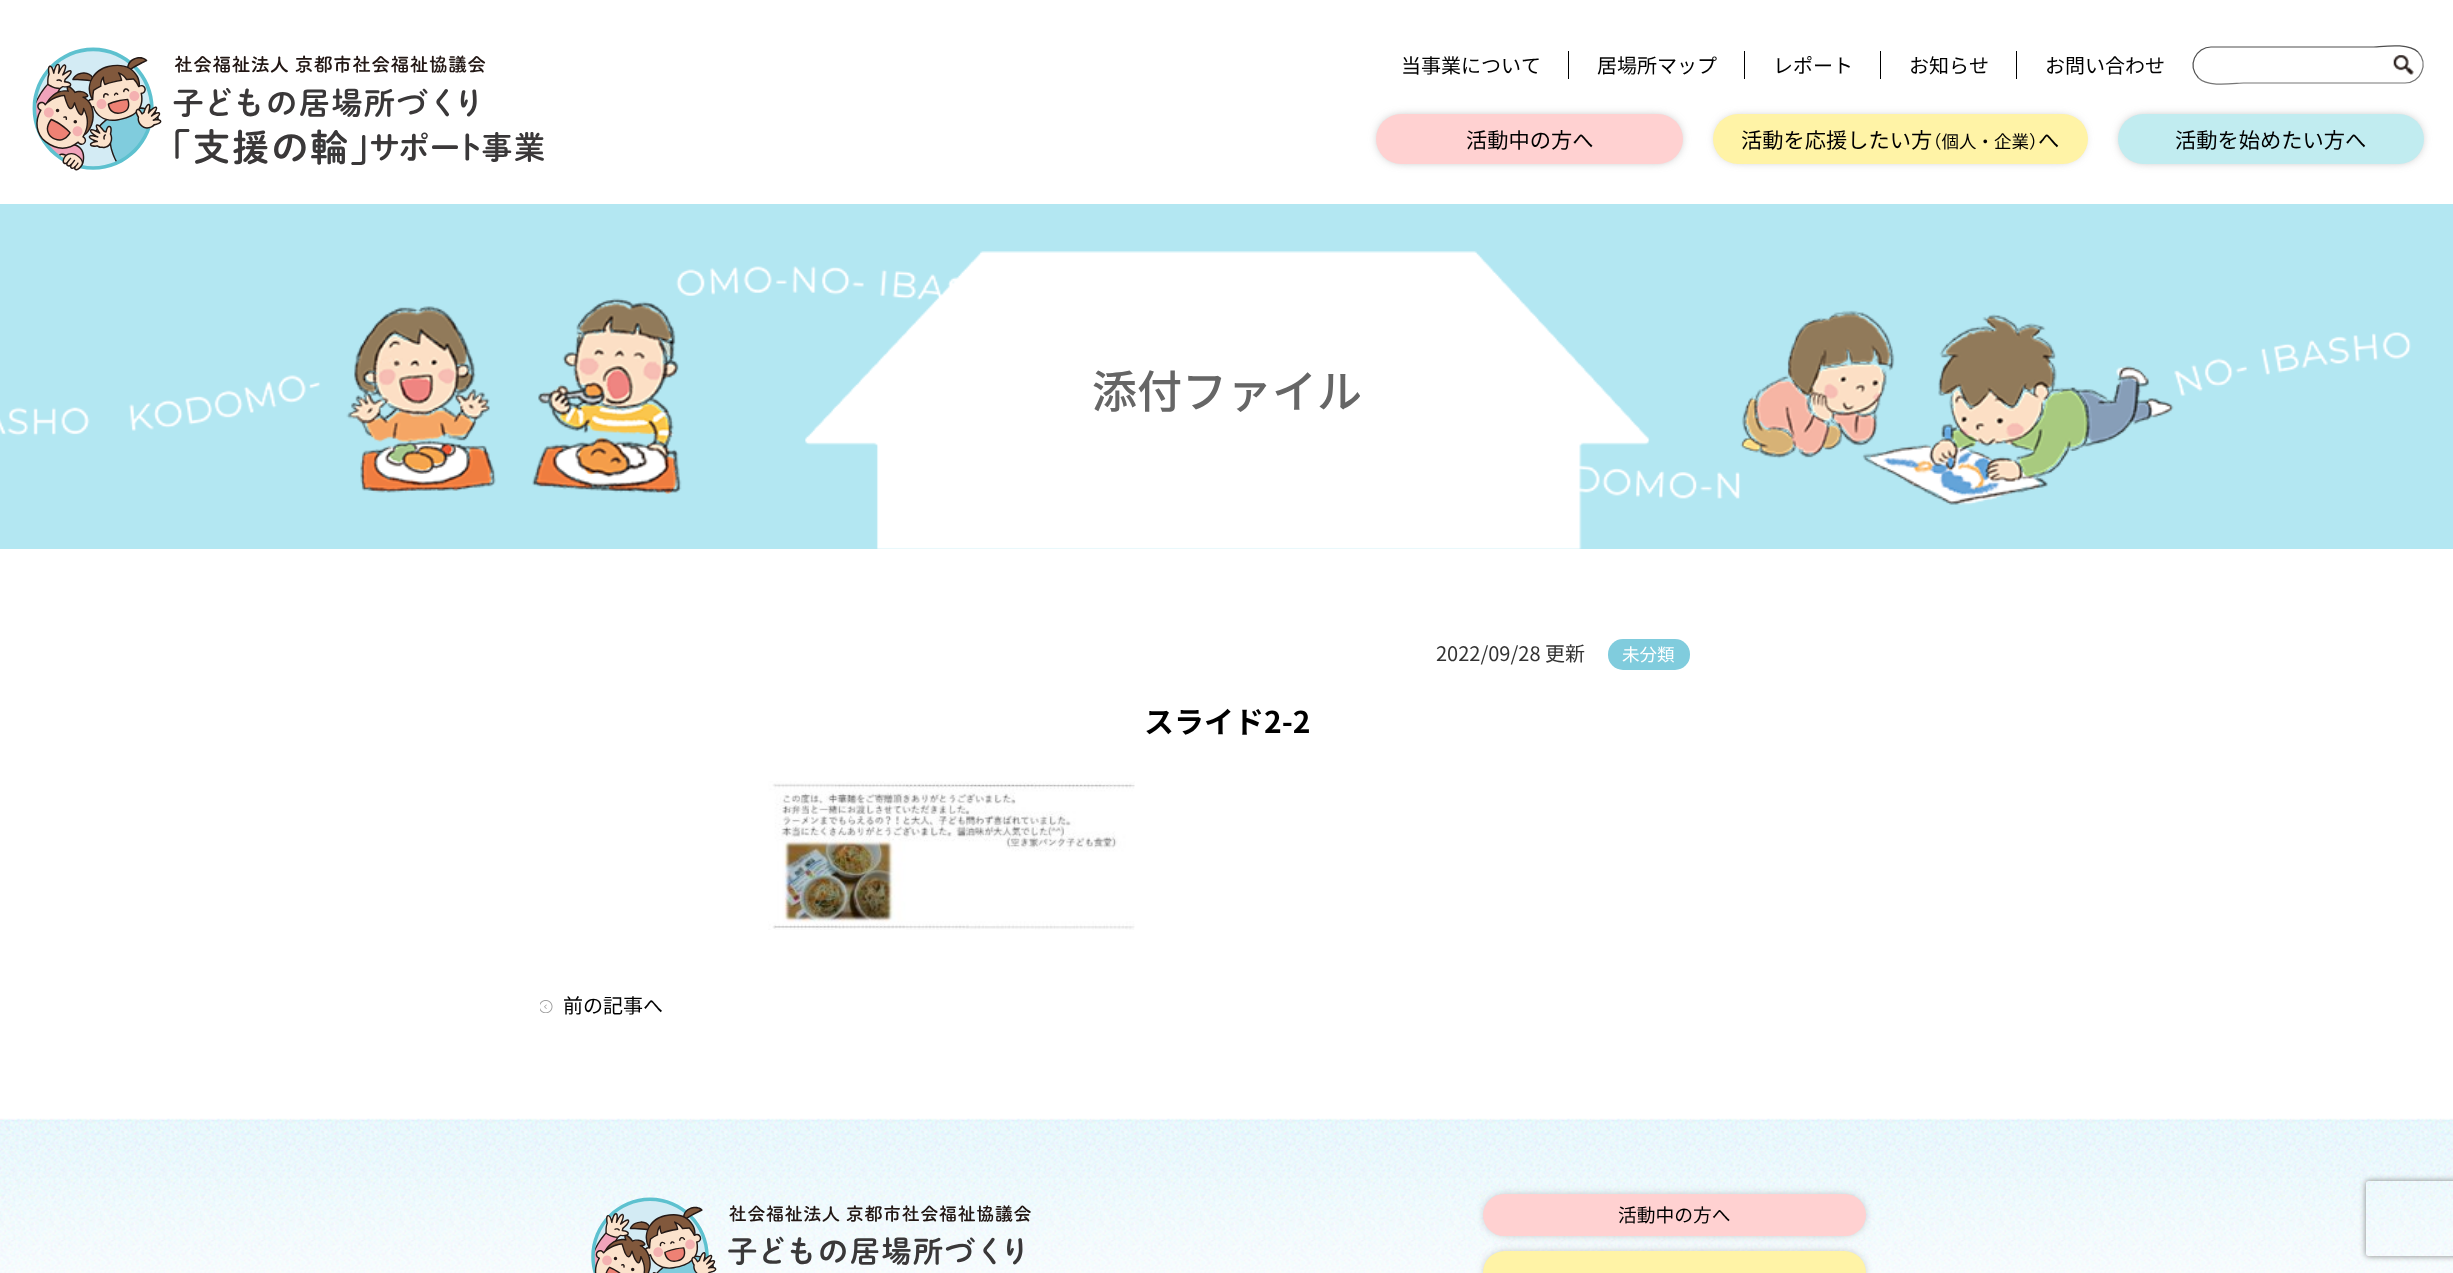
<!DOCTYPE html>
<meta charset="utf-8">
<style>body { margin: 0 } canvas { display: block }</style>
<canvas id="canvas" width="2453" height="1273"></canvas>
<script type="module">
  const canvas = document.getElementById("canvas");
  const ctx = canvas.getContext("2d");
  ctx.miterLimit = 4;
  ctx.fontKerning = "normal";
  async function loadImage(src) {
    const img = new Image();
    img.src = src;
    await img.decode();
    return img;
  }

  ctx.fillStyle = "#ffffff";
  ctx.fillRect(0, 0, 2453, 1273);
  ctx.drawImage(await loadImage("img1.png"), 32, 47, 512, 124);
  ctx.font = "20px Noto Sans JP";
  ctx.fillStyle = "#000000";
  ctx.fillText("当事業について", 1401, 73);
  ctx.fillRect(1568, 51, 1, 28);
  ctx.fillText("居場所マップ", 1597, 73);
  ctx.fillRect(1744, 51, 1, 28);
  ctx.fillText("レポート", 1773, 73);
  ctx.fillRect(1880, 51, 1, 28);
  ctx.fillText("お知らせ", 1909, 73);
  ctx.fillRect(2016, 51, 1, 28);
  ctx.fillText("お問い合わせ", 2045, 73);
  ctx.beginPath();
  ctx.moveTo(2418, 52);
  ctx.bezierCurveTo(2423, 57.5, 2424.5, 65, 2421.5, 72);
  ctx.bezierCurveTo(2419, 78.5, 2412.5, 83, 2405, 83);
  ctx.lineTo(2243.5, 83);
  ctx.bezierCurveTo(2235.5, 83, 2208.5, 88, 2198.5, 78);
  ctx.strokeStyle = "#767676";
  ctx.lineWidth = 1.2;
  ctx.stroke();
  ctx.beginPath();
  ctx.moveTo(2198.5, 78);
  ctx.bezierCurveTo(2193.5, 72.5, 2191.5, 65, 2194.5, 58);
  ctx.bezierCurveTo(2197.5, 51.5, 2204, 47, 2211, 47);
  ctx.lineTo(2372.5, 47);
  ctx.bezierCurveTo(2380.5, 47, 2407.5, 42, 2418, 52);
  ctx.strokeStyle = "#4f4f4f";
  ctx.stroke();
  ctx.drawImage(await loadImage("img2.png"), 2393, 55, 21, 20);
  ctx.fillStyle = "#777777";
  ctx.filter = "blur(6px)";
  ctx.beginPath();
  ctx.roundRect(1381, 119, 297, 40, 20);
  ctx.fill();
  ctx.filter = "none";
  ctx.fillStyle = "#ffd1d1";
  ctx.beginPath();
  ctx.roundRect(1376, 114, 307, 50, 25);
  ctx.fill();
  ctx.font = "21.25px Noto Sans JP";
  ctx.fillStyle = "#000000";
  ctx.fillText("活動中の方へ", 1466, 148);
  ctx.fillStyle = "#777777";
  ctx.filter = "blur(6px)";
  ctx.beginPath();
  ctx.roundRect(1719, 120, 362, 38, 19);
  ctx.fill();
  ctx.filter = "none";
  ctx.fillStyle = "#fff3a6";
  ctx.beginPath();
  ctx.roundRect(1713, 114, 375, 50, 25);
  ctx.fill();
  ctx.fillStyle = "#000000";
  ctx.fillText("活動を応援したい方", 1741, 148);
  ctx.font = "17.5px Noto Sans JP";
  ctx.fillText("（個人・企業）", 1924, 148);
  ctx.font = "21.25px Noto Sans JP";
  ctx.fillText("へ", 2038, 148);
  ctx.fillStyle = "#777777";
  ctx.filter = "blur(6px)";
  ctx.beginPath();
  ctx.roundRect(2123, 119, 296, 40, 20);
  ctx.fill();
  ctx.filter = "none";
  ctx.fillStyle = "#c1ecf0";
  ctx.beginPath();
  ctx.roundRect(2118, 114, 306, 50, 25);
  ctx.fill();
  ctx.fillStyle = "#000000";
  ctx.fillText("活動を始めたい方へ", 2175, 148);
  ctx.fillStyle = "#b3e7f2";
  ctx.fillRect(0, 204, 2453, 345);
  ctx.drawImage(await loadImage("img3.png"), 0, 251, 2411, 298);
  ctx.font = "500 45px Noto Sans JP";
  ctx.fillStyle = "#666666";
  ctx.fillText("添付ファイル", 1092, 408);
  ctx.font = "20px Noto Sans JP";
  ctx.fillStyle = "#333333";
  ctx.fillText("2022/09/28 更新", 1436, 661);
  ctx.fillStyle = "#80ccdd";
  ctx.beginPath();
  ctx.roundRect(1608, 639, 82, 31, 15);
  ctx.fill();
  ctx.font = "17.5px Noto Sans JP";
  ctx.fillStyle = "#ffffff";
  ctx.fillText("未分類", 1622, 661);
  ctx.font = "bold 30px Noto Sans JP";
  ctx.fillStyle = "#000000";
  ctx.fillText("スライド2-2", 1144, 733);
  ctx.drawImage(await loadImage("img4.png"), 768, 781, 367, 149);
  ctx.drawImage(await loadImage("img5.png"), 540, 1000, 13, 13);
  ctx.font = "20px Noto Sans JP";
  ctx.fillText("前の記事へ", 563, 1013);
  ctx.drawImage(await loadImage("img6.png"), 0, 1118, 2453, 155);
  ctx.drawImage(await loadImage("img7.png"), 591, 1197, 440, 76);
  ctx.fillStyle = "#777777";
  ctx.filter = "blur(6px)";
  ctx.beginPath();
  ctx.roundRect(1488, 1199, 373, 32, 16);
  ctx.fill();
  ctx.filter = "none";
  ctx.fillStyle = "#ffd1d1";
  ctx.beginPath();
  ctx.roundRect(1483, 1194, 383, 42, 21);
  ctx.fill();
  ctx.font = "18.75px Noto Sans JP";
  ctx.fillStyle = "#000000";
  ctx.fillText("活動中の方へ", 1618, 1222);
  ctx.fillStyle = "#777777";
  ctx.filter = "blur(6px)";
  ctx.beginPath();
  ctx.roundRect(1488, 1256, 373, 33, 16.5);
  ctx.fill();
  ctx.filter = "none";
  ctx.fillStyle = "#fff3a6";
  ctx.beginPath();
  ctx.roundRect(1483, 1251, 383, 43, 21.5);
  ctx.fill();
  ctx.save();
  ctx.beginPath();
  ctx.moveTo(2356, 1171);
  ctx.lineTo(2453, 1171);
  ctx.lineTo(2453, 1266);
  ctx.lineTo(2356, 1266);
  ctx.closePath();
  ctx.moveTo(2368.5, 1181);
  ctx.lineTo(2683.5, 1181);
  ctx.bezierCurveTo(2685, 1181, 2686, 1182, 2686, 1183.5);
  ctx.lineTo(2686, 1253.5);
  ctx.bezierCurveTo(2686, 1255, 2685, 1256, 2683.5, 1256);
  ctx.lineTo(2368.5, 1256);
  ctx.bezierCurveTo(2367, 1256, 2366, 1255, 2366, 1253.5);
  ctx.lineTo(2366, 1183.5);
  ctx.bezierCurveTo(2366, 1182, 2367, 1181, 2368.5, 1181);
  ctx.closePath();
  ctx.clip("evenodd");
  ctx.fillStyle = "#808080";
  ctx.filter = "blur(3px)";
  ctx.beginPath();
  ctx.roundRect(2366, 1181, 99, 75, 2.5);
  ctx.fill();
  ctx.filter = "none";
  ctx.restore();
</script>
